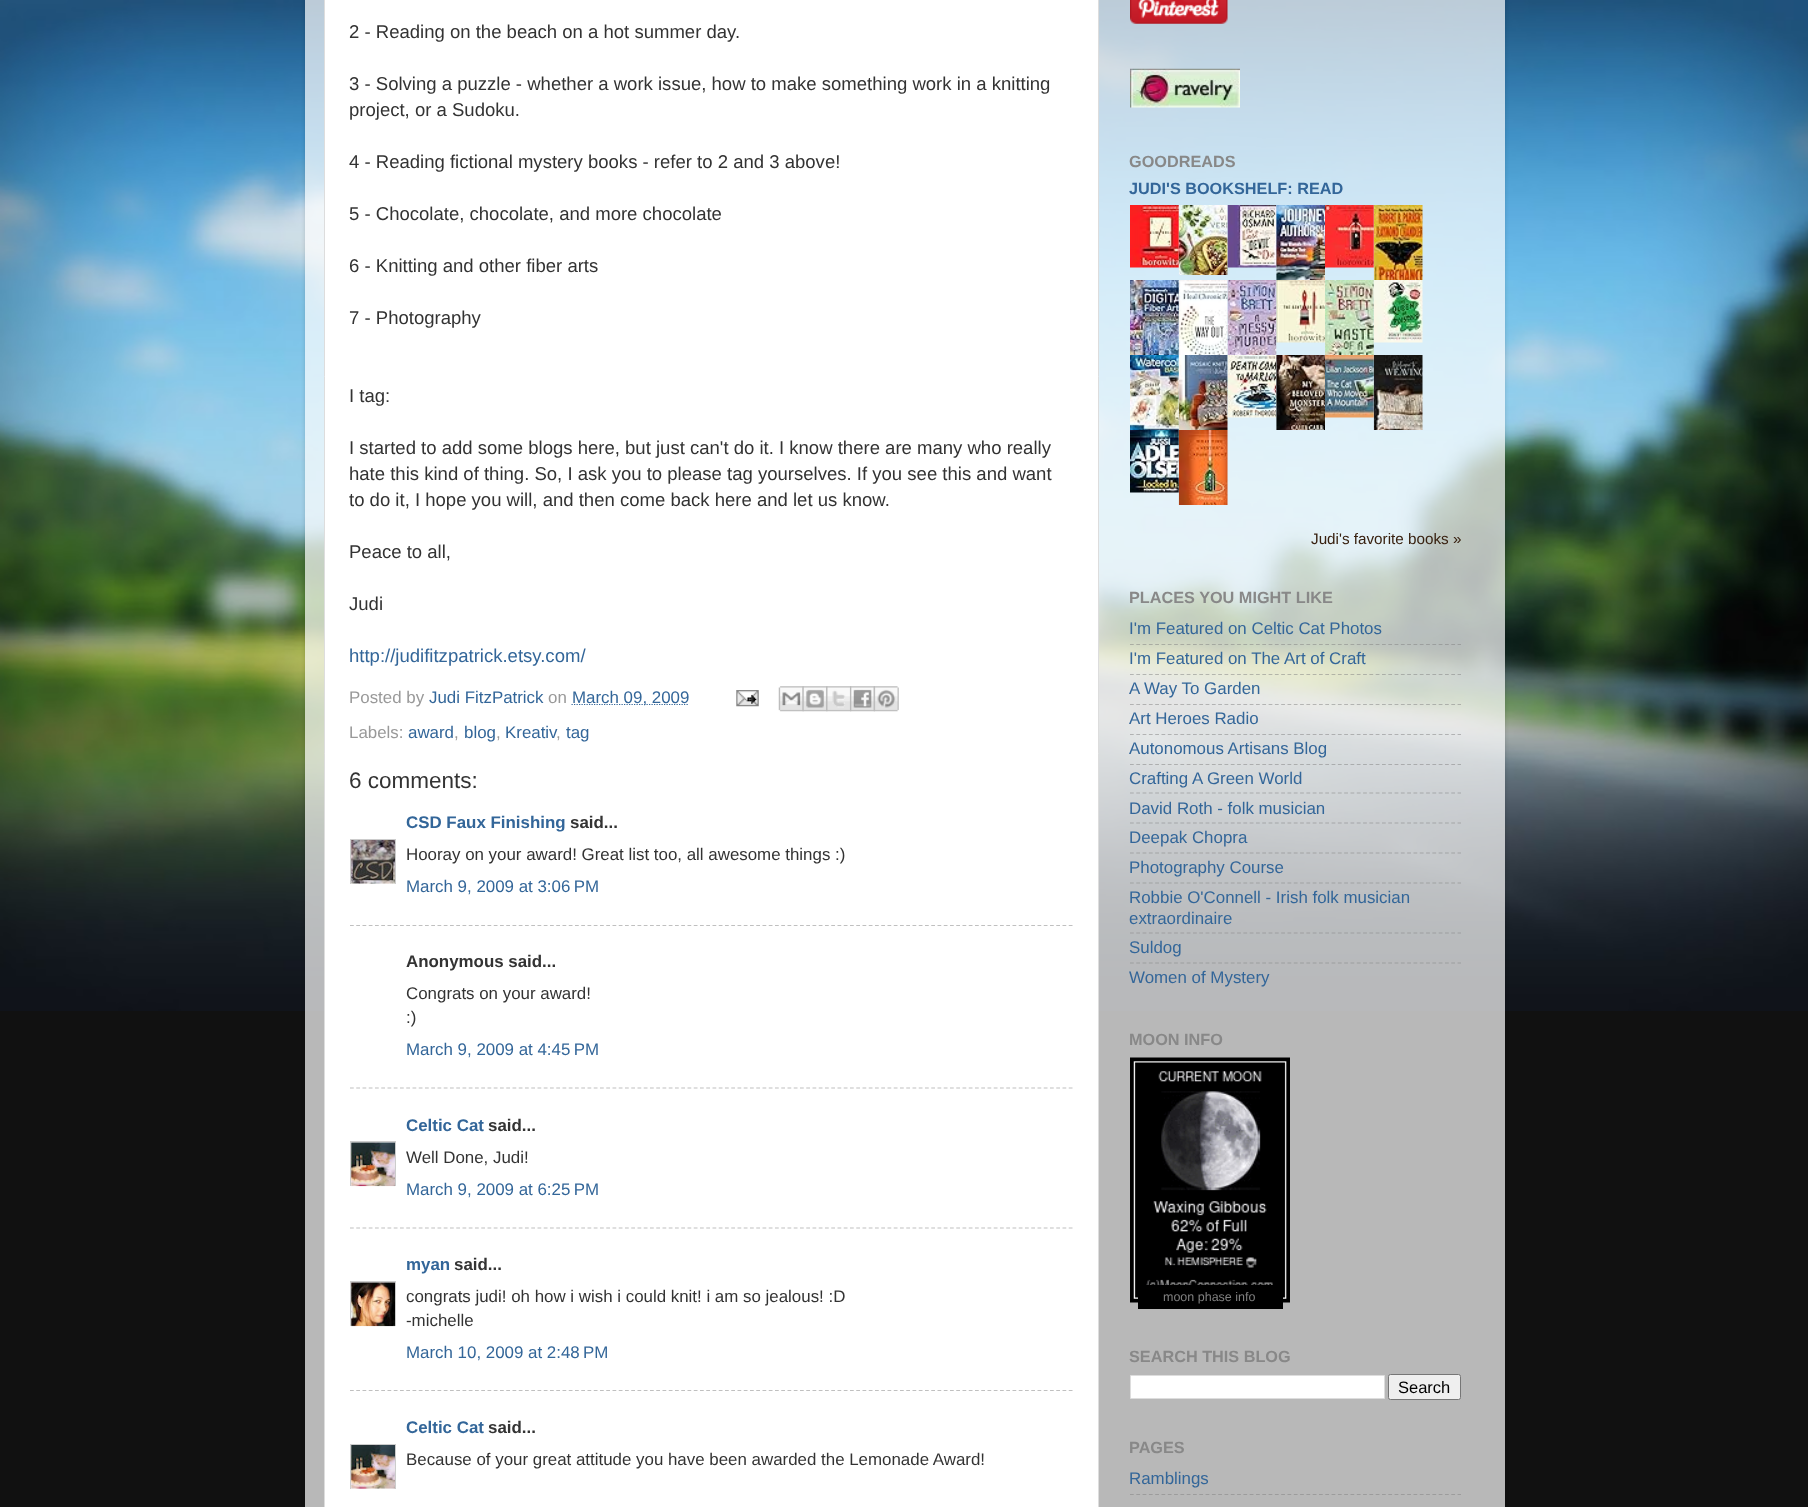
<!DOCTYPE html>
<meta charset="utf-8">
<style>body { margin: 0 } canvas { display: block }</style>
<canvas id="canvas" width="1808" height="1507"></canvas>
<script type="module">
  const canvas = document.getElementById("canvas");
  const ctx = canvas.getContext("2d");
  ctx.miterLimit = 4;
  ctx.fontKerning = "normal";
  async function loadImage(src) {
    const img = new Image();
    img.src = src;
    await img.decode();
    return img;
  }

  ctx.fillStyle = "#111111";
  ctx.fillRect(0, 0, 1808, 1507);
  ctx.drawImage(await loadImage("img1.png"), 0, 0, 1808, 1011);
  ctx.save();
  ctx.beginPath();
  ctx.moveTo(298, 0);
  ctx.lineTo(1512, 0);
  ctx.lineTo(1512, 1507);
  ctx.lineTo(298, 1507);
  ctx.closePath();
  ctx.moveTo(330, -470);
  ctx.lineTo(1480, -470);
  ctx.bezierCurveTo(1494, -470, 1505, -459, 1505, -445);
  ctx.lineTo(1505, 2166);
  ctx.lineTo(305, 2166);
  ctx.lineTo(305, -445);
  ctx.bezierCurveTo(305, -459, 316, -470, 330, -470);
  ctx.closePath();
  ctx.clip("evenodd");
  ctx.fillStyle = "rgba(0, 0, 0, 0.15)";
  ctx.filter = "blur(2px)";
  ctx.beginPath();
  ctx.roundRect(305, -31, 1200, 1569, 25);
  ctx.fill();
  ctx.filter = "none";
  ctx.restore();
  ctx.fillStyle = "rgba(255, 255, 255, 0.7)";
  ctx.fillRect(305, 0, 1200, 1507);
  ctx.fillStyle = "#ffffff";
  ctx.beginPath();
  ctx.rect(324.5, -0.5, 774, 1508);
  ctx.fill();
  ctx.strokeStyle = "#dddddd";
  ctx.stroke();
  ctx.font = "18.55px Liberation Sans";
  ctx.fillStyle = "#333333";
  ctx.fillText("2 - Reading on the beach on a hot summer day.", 349, 38);
  ctx.fillText("3 - Solving a puzzle - whether a work issue, how to make something work in a knitting", 349, 90);
  ctx.fillText("project, or a Sudoku.", 349, 116);
  ctx.fillText("4 - Reading fictional mystery books - refer to 2 and 3 above!", 349, 168);
  ctx.fillText("5 - Chocolate, chocolate, and more chocolate", 349, 220);
  ctx.fillText("6 - Knitting and other fiber arts", 349, 272);
  ctx.fillText("7 - Photography", 349, 324);
  ctx.fillText("I tag:", 349, 402);
  ctx.fillText("I started to add some blogs here, but just can't do it. I know there are many who really", 349, 454);
  ctx.fillText("hate this kind of thing. So, I ask you to please tag yourselves. If you see this and want", 349, 480);
  ctx.fillText("to do it, I hope you will, and then come back here and let us know.", 349, 506);
  ctx.fillText("Peace to all,", 349, 558);
  ctx.fillText("Judi", 349, 610);
  ctx.fillStyle = "#336699";
  ctx.fillText("http://judifitzpatrick.etsy.com/", 349, 662);
  ctx.font = "16.9px Liberation Sans";
  ctx.fillStyle = "#999999";
  ctx.fillText("Posted by", 349, 703);
  ctx.fillStyle = "#336699";
  ctx.fillText("Judi FitzPatrick", 429, 703);
  ctx.fillStyle = "#999999";
  ctx.fillText("on", 548, 703);
  ctx.beginPath();
  ctx.moveTo(571.5, 704.5);
  ctx.lineTo(689, 704.5);
  ctx.strokeStyle = "#336699";
  ctx.lineWidth = 1.2;
  ctx.setLineDash([1.25, 1.25]);
  ctx.stroke();
  ctx.fillStyle = "#336699";
  ctx.fillText("March 09, 2009", 572, 703);
  ctx.drawImage(await loadImage("img2.png"), 736, 690, 23, 17);
  ctx.drawImage(await loadImage("img3.png"), 778, 686, 26, 26);
  ctx.drawImage(await loadImage("img4.png"), 802, 686, 26, 26);
  ctx.drawImage(await loadImage("img5.png"), 826, 686, 26, 26);
  ctx.drawImage(await loadImage("img6.png"), 850, 686, 25, 26);
  ctx.drawImage(await loadImage("img7.png"), 873, 686, 26, 26);
  ctx.fillStyle = "#999999";
  ctx.fillText("Labels:", 349, 738);
  ctx.fillStyle = "#336699";
  ctx.fillText("award", 408, 738);
  ctx.fillStyle = "#999999";
  ctx.fillText(",", 454, 738);
  ctx.fillStyle = "#336699";
  ctx.fillText("blog", 464, 738);
  ctx.fillStyle = "#999999";
  ctx.fillText(",", 496, 738);
  ctx.fillStyle = "#336699";
  ctx.fillText("Kreativ", 505, 738);
  ctx.fillStyle = "#999999";
  ctx.fillText(",", 556, 738);
  ctx.fillStyle = "#336699";
  ctx.fillText("tag", 566, 738);
  ctx.font = "22.5px Liberation Sans";
  ctx.fillStyle = "#333333";
  ctx.fillText("6 comments:", 349, 788);
  ctx.font = "bold 16.9px Liberation Sans";
  ctx.fillStyle = "#336699";
  ctx.fillText("CSD Faux Finishing", 406, 828);
  ctx.fillStyle = "#333333";
  ctx.fillText("said...", 570, 828);
  ctx.save();
  ctx.beginPath();
  ctx.rect(350, 839, 46, 45);
  ctx.clip();
  ctx.strokeStyle = "#cccccc";
  ctx.lineWidth = 1;
  ctx.setLineDash([]);
  ctx.strokeRect(350.5, 839.5, 45, 45);
  ctx.restore();
  ctx.drawImage(await loadImage("img8.png"), 351, 840, 44, 44);
  ctx.font = "16.9px Liberation Sans";
  ctx.fillText("Hooray on your award! Great list too, all awesome things :)", 406, 860);
  ctx.fillStyle = "#336699";
  ctx.fillText("March 9, 2009 at 3:06 PM", 406, 892);
  ctx.beginPath();
  ctx.moveTo(350, 925.5);
  ctx.lineTo(1072.5, 925.5);
  ctx.strokeStyle = "#c0c0c0";
  ctx.setLineDash([3.75, 2.5]);
  ctx.stroke();
  ctx.font = "bold 16.9px Liberation Sans";
  ctx.fillStyle = "#333333";
  ctx.fillText("Anonymous said...", 406, 967);
  ctx.font = "16.9px Liberation Sans";
  ctx.fillText("Congrats on your award!", 406, 999);
  ctx.fillText(":)", 406, 1023);
  ctx.fillStyle = "#336699";
  ctx.fillText("March 9, 2009 at 4:45 PM", 406, 1055);
  ctx.beginPath();
  ctx.moveTo(350, 1088);
  ctx.lineTo(1072.5, 1088);
  ctx.stroke();
  ctx.font = "bold 16.9px Liberation Sans";
  ctx.fillText("Celtic Cat", 406, 1131);
  ctx.fillStyle = "#333333";
  ctx.fillText("said...", 488, 1131);
  ctx.save();
  ctx.beginPath();
  ctx.rect(350, 1141, 46, 45);
  ctx.clip();
  ctx.strokeStyle = "#cccccc";
  ctx.lineWidth = 1;
  ctx.setLineDash([]);
  ctx.strokeRect(350.5, 1141.5, 45, 46);
  ctx.restore();
  ctx.drawImage(await loadImage("img9.png"), 351, 1142, 44, 45);
  ctx.font = "16.9px Liberation Sans";
  ctx.fillText("Well Done, Judi!", 406, 1163);
  ctx.fillStyle = "#336699";
  ctx.fillText("March 9, 2009 at 6:25 PM", 406, 1195);
  ctx.beginPath();
  ctx.moveTo(350, 1228);
  ctx.lineTo(1072.5, 1228);
  ctx.stroke();
  ctx.font = "bold 16.9px Liberation Sans";
  ctx.fillText("myan", 406, 1270);
  ctx.fillStyle = "#333333";
  ctx.fillText("said...", 454, 1270);
  ctx.save();
  ctx.beginPath();
  ctx.rect(350, 1281, 46, 45);
  ctx.clip();
  ctx.strokeStyle = "#cccccc";
  ctx.lineWidth = 1;
  ctx.setLineDash([]);
  ctx.strokeRect(350.5, 1281.5, 45, 46);
  ctx.restore();
  ctx.drawImage(await loadImage("img10.png"), 351, 1282, 44, 45);
  ctx.font = "16.9px Liberation Sans";
  ctx.fillText("congrats judi! oh how i wish i could knit! i am so jealous! :D", 406, 1302);
  ctx.fillText("-michelle", 406, 1326);
  ctx.fillStyle = "#336699";
  ctx.fillText("March 10, 2009 at 2:48 PM", 406, 1358);
  ctx.beginPath();
  ctx.moveTo(350, 1390.5);
  ctx.lineTo(1072.5, 1390.5);
  ctx.stroke();
  ctx.font = "bold 16.9px Liberation Sans";
  ctx.fillText("Celtic Cat", 406, 1433);
  ctx.fillStyle = "#333333";
  ctx.fillText("said...", 488, 1433);
  ctx.save();
  ctx.beginPath();
  ctx.rect(350, 1444, 46, 45);
  ctx.clip();
  ctx.strokeStyle = "#cccccc";
  ctx.lineWidth = 1;
  ctx.setLineDash([]);
  ctx.strokeRect(350.5, 1444.5, 45, 45);
  ctx.restore();
  ctx.drawImage(await loadImage("img11.png"), 351, 1445, 44, 44);
  ctx.font = "16.9px Liberation Sans";
  ctx.fillText("Because of your great attitude you have been awarded the Lemonade Award!", 406, 1465);
  ctx.drawImage(await loadImage("img12.png"), 1130, 0, 98, 24);
  ctx.drawImage(await loadImage("img13.png"), 1130, 68, 110, 40);
  ctx.font = "bold 16.25px Liberation Sans";
  ctx.fillStyle = "#888888";
  ctx.fillText("GOODREADS", 1129, 167);
  ctx.fillStyle = "#336699";
  ctx.fillText("JUDI'S BOOKSHELF: READ", 1129, 194);
  ctx.drawImage(await loadImage("img14.png"), 1130, 205, 49, 63);
  ctx.drawImage(await loadImage("img15.png"), 1178, 205, 50, 70);
  ctx.drawImage(await loadImage("img16.png"), 1227, 205, 50, 63);
  ctx.drawImage(await loadImage("img17.png"), 1276, 205, 49, 75);
  ctx.drawImage(await loadImage("img18.png"), 1325, 205, 49, 63);
  ctx.drawImage(await loadImage("img19.png"), 1373, 205, 50, 75);
  ctx.drawImage(await loadImage("img20.png"), 1130, 280, 49, 75);
  ctx.drawImage(await loadImage("img21.png"), 1178, 280, 50, 75);
  ctx.drawImage(await loadImage("img22.png"), 1227, 280, 50, 75);
  ctx.drawImage(await loadImage("img23.png"), 1276, 280, 49, 63);
  ctx.drawImage(await loadImage("img24.png"), 1325, 280, 49, 75);
  ctx.drawImage(await loadImage("img25.png"), 1373, 280, 50, 63);
  ctx.drawImage(await loadImage("img26.png"), 1130, 355, 49, 75);
  ctx.drawImage(await loadImage("img27.png"), 1178, 355, 50, 75);
  ctx.drawImage(await loadImage("img28.png"), 1227, 355, 50, 63);
  ctx.drawImage(await loadImage("img29.png"), 1276, 355, 49, 75);
  ctx.drawImage(await loadImage("img30.png"), 1325, 355, 49, 63);
  ctx.drawImage(await loadImage("img31.png"), 1373, 355, 50, 75);
  ctx.drawImage(await loadImage("img32.png"), 1130, 430, 49, 63);
  ctx.drawImage(await loadImage("img33.png"), 1178, 430, 50, 75);
  ctx.font = "15.25px Liberation Sans";
  ctx.fillStyle = "#382110";
  ctx.fillText("Judi's favorite books »", 1311, 544);
  ctx.font = "bold 16.25px Liberation Sans";
  ctx.fillStyle = "#888888";
  ctx.fillText("PLACES YOU MIGHT LIKE", 1129, 603);
  ctx.font = "16.9px Liberation Sans";
  ctx.fillStyle = "#336699";
  ctx.fillText("I'm Featured on Celtic Cat Photos", 1129, 634);
  ctx.beginPath();
  ctx.moveTo(1130, 644.5);
  ctx.lineTo(1461, 644.5);
  ctx.strokeStyle = "rgba(128, 128, 128, 0.5)";
  ctx.setLineDash([3.75, 2.55]);
  ctx.stroke();
  ctx.fillText("I'm Featured on The Art of Craft", 1129, 664);
  ctx.beginPath();
  ctx.moveTo(1130, 674.5);
  ctx.lineTo(1461, 674.5);
  ctx.stroke();
  ctx.fillText("A Way To Garden", 1129, 694);
  ctx.beginPath();
  ctx.moveTo(1130, 704.5);
  ctx.lineTo(1461, 704.5);
  ctx.stroke();
  ctx.fillText("Art Heroes Radio", 1129, 724);
  ctx.beginPath();
  ctx.moveTo(1130, 734.5);
  ctx.lineTo(1461, 734.5);
  ctx.stroke();
  ctx.fillText("Autonomous Artisans Blog", 1129, 754);
  ctx.beginPath();
  ctx.moveTo(1130, 764.5);
  ctx.lineTo(1461, 764.5);
  ctx.stroke();
  ctx.fillText("Crafting A Green World", 1129, 784);
  ctx.beginPath();
  ctx.moveTo(1130, 793);
  ctx.lineTo(1461, 793);
  ctx.stroke();
  ctx.fillText("David Roth - folk musician", 1129, 814);
  ctx.beginPath();
  ctx.moveTo(1130, 823);
  ctx.lineTo(1461, 823);
  ctx.stroke();
  ctx.fillText("Deepak Chopra", 1129, 843);
  ctx.beginPath();
  ctx.moveTo(1130, 853);
  ctx.lineTo(1461, 853);
  ctx.stroke();
  ctx.fillText("Photography Course", 1129, 873);
  ctx.beginPath();
  ctx.moveTo(1130, 883);
  ctx.lineTo(1461, 883);
  ctx.strokeStyle = "#9fa1a2";
  ctx.stroke();
  ctx.fillText("Robbie O'Connell - Irish folk musician", 1129, 903);
  ctx.fillText("extraordinaire", 1129, 924);
  ctx.beginPath();
  ctx.moveTo(1130, 933);
  ctx.lineTo(1461, 933);
  ctx.strokeStyle = "#9d9e9f";
  ctx.stroke();
  ctx.fillText("Suldog", 1129, 953);
  ctx.beginPath();
  ctx.moveTo(1130, 963);
  ctx.lineTo(1461, 963);
  ctx.strokeStyle = "#9c9d9e";
  ctx.stroke();
  ctx.fillText("Women of Mystery", 1129, 983);
  ctx.font = "bold 16.25px Liberation Sans";
  ctx.fillStyle = "#888888";
  ctx.fillText("MOON INFO", 1129, 1045);
  ctx.drawImage(await loadImage("img34.png"), 1130, 1057, 160, 246);
  ctx.fillStyle = "#000000";
  ctx.fillRect(1138, 1285, 145, 24);
  ctx.font = "12.5px Liberation Sans";
  ctx.fillStyle = "#7f7f7f";
  ctx.fillText("moon phase info", 1163, 1301);
  ctx.font = "bold 16.25px Liberation Sans";
  ctx.fillStyle = "#888888";
  ctx.fillText("SEARCH THIS BLOG", 1129, 1362);
  ctx.fillStyle = "#ffffff";
  ctx.beginPath();
  ctx.rect(1130.5, 1375.5, 254, 23);
  ctx.fill();
  ctx.strokeStyle = "#dddddd";
  ctx.lineWidth = 1;
  ctx.setLineDash([]);
  ctx.stroke();
  ctx.fillStyle = "#efefef";
  ctx.beginPath();
  ctx.roundRect(1388.5, 1374.5, 72, 25, 2);
  ctx.fill();
  ctx.strokeStyle = "#767676";
  ctx.stroke();
  ctx.font = "16.5px Liberation Sans";
  ctx.fillStyle = "#000000";
  ctx.fillText("Search", 1398, 1393);
  ctx.font = "bold 16.25px Liberation Sans";
  ctx.fillStyle = "#888888";
  ctx.fillText("PAGES", 1129, 1453);
  ctx.font = "16.9px Liberation Sans";
  ctx.fillStyle = "#336699";
  ctx.fillText("Ramblings", 1129, 1484);
  ctx.beginPath();
  ctx.moveTo(1130, 1494.5);
  ctx.lineTo(1461, 1494.5);
  ctx.strokeStyle = "#9c9c9c";
  ctx.lineWidth = 1.2;
  ctx.setLineDash([3.75, 2.55]);
  ctx.stroke();
</script>
